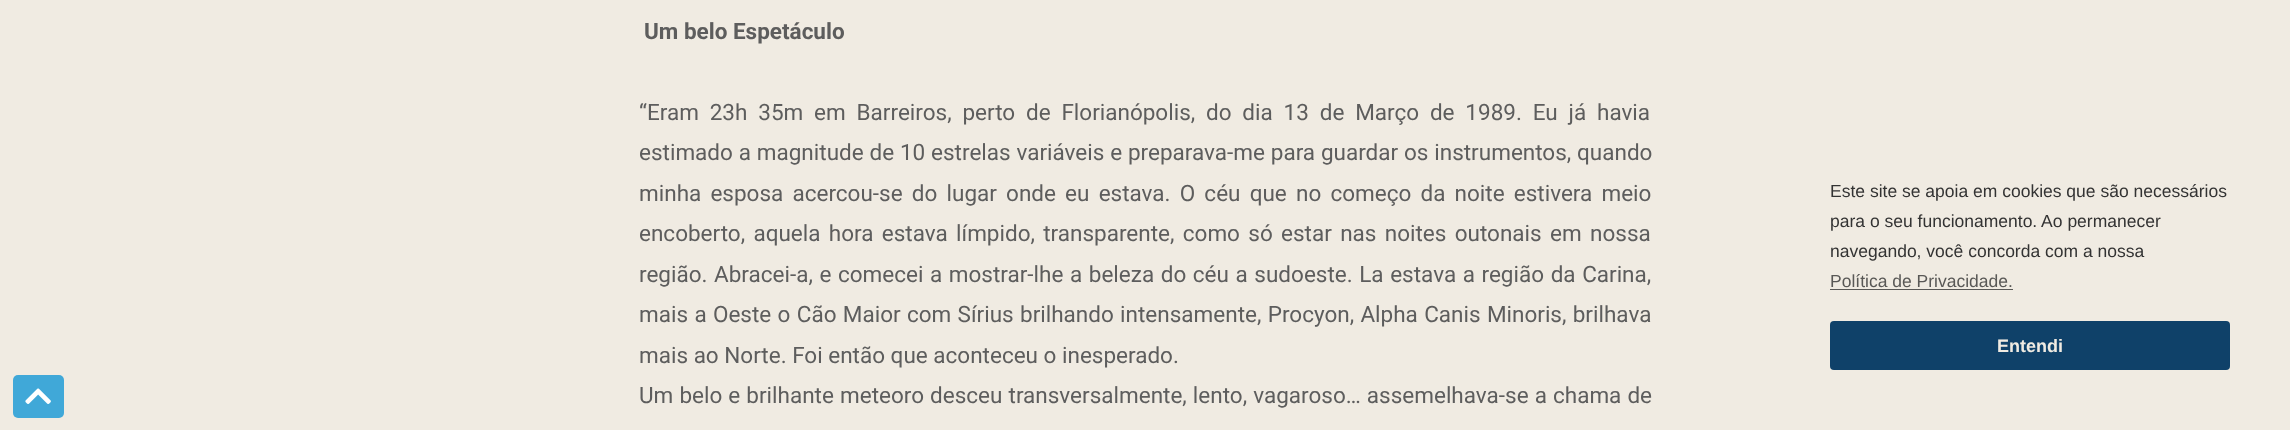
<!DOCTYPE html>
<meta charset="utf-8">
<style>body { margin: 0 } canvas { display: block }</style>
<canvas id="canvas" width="2290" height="430"></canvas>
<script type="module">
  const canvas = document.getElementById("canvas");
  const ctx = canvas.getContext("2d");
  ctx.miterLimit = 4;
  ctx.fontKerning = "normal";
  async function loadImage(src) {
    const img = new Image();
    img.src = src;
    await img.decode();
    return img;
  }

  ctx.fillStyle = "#f0ebe2";
  ctx.fillRect(0, 0, 2290, 430);
  ctx.font = "bold 22.5px Roboto";
  ctx.fillStyle = "#5d5d5d";
  ctx.fillText("Um belo Espetáculo", 644, 39);
  ctx.wordSpacing = "5.25px";
  ctx.font = "22.5px Roboto";
  ctx.fillText("“Eram 23h 35m em Barreiros, perto de Florianópolis, do dia 13 de Março de 1989. Eu já havia", 639, 120);
  ctx.wordSpacing = "0.25px";
  ctx.fillText("estimado a magnitude de 10 estrelas variáveis e preparava-me para guardar os instrumentos, quando", 639, 160);
  ctx.wordSpacing = "3.6px";
  ctx.fillText("minha esposa acercou-se do lugar onde eu estava. O céu que no começo da noite estivera meio", 639, 201);
  ctx.wordSpacing = "2.75px";
  ctx.fillText("encoberto, aquela hora estava límpido, transparente, como só estar nas noites outonais em nossa", 639, 241);
  ctx.wordSpacing = "1px";
  ctx.fillText("região. Abracei-a, e comecei a mostrar-lhe a beleza do céu a sudoeste. La estava a região da Carina,", 639, 282);
  ctx.wordSpacing = "0.75px";
  ctx.fillText("mais a Oeste o Cão Maior com Sírius brilhando intensamente, Procyon, Alpha Canis Minoris, brilhava", 639, 322);
  ctx.wordSpacing = "0px";
  ctx.fillText("mais ao Norte. Foi então que aconteceu o inesperado.", 639, 363);
  ctx.wordSpacing = "0.5px";
  ctx.fillText("Um belo e brilhante meteoro desceu transversalmente, lento, vagaroso… assemelhava-se a chama de", 639, 403);
  ctx.wordSpacing = "0px";
  ctx.font = "17.5px Liberation Sans";
  ctx.fillStyle = "#333333";
  ctx.fillText("Este site se apoia em cookies que são necessários", 1830, 197);
  ctx.fillText("para o seu funcionamento. Ao permanecer", 1830, 227);
  ctx.fillText("navegando, você concorda com a nossa", 1830, 257);
  ctx.fillStyle = "#595856";
  ctx.fillText("Política de Privacidade.", 1830, 287);
  ctx.fillRect(1830, 289, 183, 1);
  ctx.fillStyle = "#0f4169";
  ctx.beginPath();
  ctx.roundRect(1830, 321, 400, 49, 4);
  ctx.fill();
  ctx.font = "bold 18px Liberation Sans";
  ctx.fillStyle = "#f0ebe2";
  ctx.fillText("Entendi", 1997, 352);
  ctx.fillStyle = "#40a8d8";
  ctx.beginPath();
  ctx.roundRect(13, 375, 51, 43, 5);
  ctx.fill();
  ctx.drawImage(await loadImage("img1.png"), 25, 388, 26, 16);
</script>
